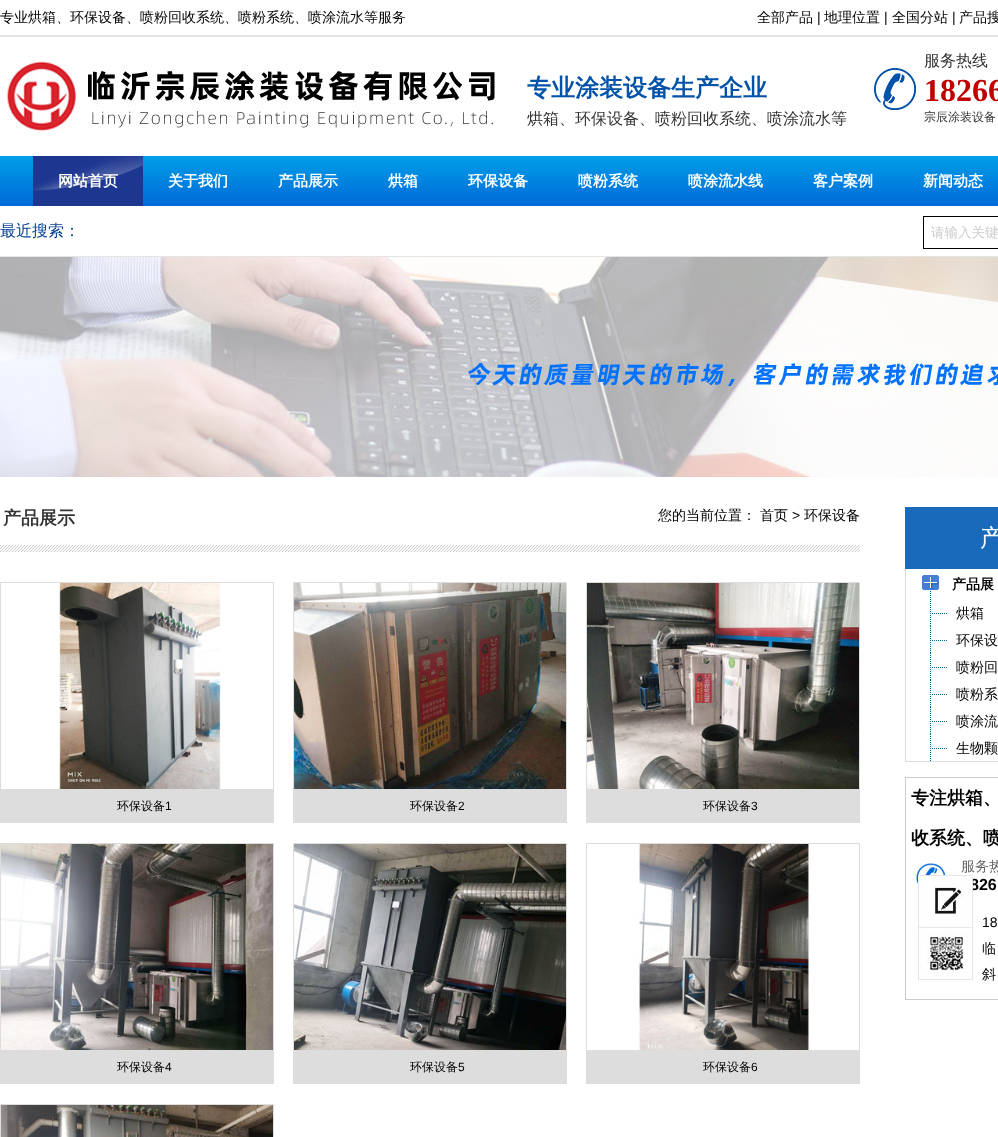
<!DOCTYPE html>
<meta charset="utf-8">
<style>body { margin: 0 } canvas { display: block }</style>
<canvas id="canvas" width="998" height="1137"></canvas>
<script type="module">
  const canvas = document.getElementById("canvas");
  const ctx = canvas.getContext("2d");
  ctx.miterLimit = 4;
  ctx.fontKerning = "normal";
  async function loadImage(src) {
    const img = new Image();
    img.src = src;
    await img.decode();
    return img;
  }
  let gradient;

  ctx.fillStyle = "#ffffff";
  ctx.fillRect(0, 0, 998, 1137);
  ctx.save();
  ctx.beginPath();
  ctx.rect(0, 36, 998, 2);
  ctx.clip();
  ctx.fillStyle = "#e5e5e5";
  ctx.filter = "blur(0.5px)";
  ctx.beginPath();
  ctx.rect(0, 1, 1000, 36);
  ctx.fill();
  ctx.filter = "none";
  ctx.restore();
  ctx.fillStyle = "#e5e5e5";
  ctx.fillRect(0, 35, 998, 1);
  ctx.font = "500 14px WenQuanYi Zen Hei";
  ctx.fillStyle = "#000000";
  ctx.fillText("专业烘箱、环保设备、喷粉回收系统、喷粉系统、喷涂流水等服务", 0, 22);
  ctx.fillText("全部产品", 757, 22);
  ctx.font = "14px Liberation Sans";
  ctx.fillText("|", 817, 22);
  ctx.font = "500 14px WenQuanYi Zen Hei";
  ctx.fillText("地理位置", 824, 22);
  ctx.font = "14px Liberation Sans";
  ctx.fillText("|", 884, 22);
  ctx.font = "500 14px WenQuanYi Zen Hei";
  ctx.fillText("全国分站", 892, 22);
  ctx.font = "14px Liberation Sans";
  ctx.fillText("|", 952, 22);
  ctx.font = "500 14px WenQuanYi Zen Hei";
  ctx.fillText("产品搜", 959, 22);
  ctx.drawImage(await loadImage("img1.png"), 0, 56, 496, 80);
  ctx.font = "bold 24px WenQuanYi Zen Hei";
  ctx.fillStyle = "#0352a9";
  ctx.fillText("专业涂装设备生产企业", 527, 96);
  ctx.font = "500 16px WenQuanYi Zen Hei";
  ctx.fillStyle = "#333333";
  ctx.fillText("烘箱、环保设备、喷粉回收系统、喷涂流水等", 527, 124);
  ctx.drawImage(await loadImage("img2.png"), 874, 68, 42, 42);
  ctx.fillText("服务热线", 924, 66);
  ctx.font = "bold 32px Liberation Serif";
  ctx.fillStyle = "#c00000";
  ctx.fillText("18266", 924, 101);
  ctx.font = "500 12px WenQuanYi Zen Hei";
  ctx.fillStyle = "#333333";
  ctx.fillText("宗辰涂装设备", 924, 121);
  gradient = ctx.createLinearGradient(575, 156, 575, 206);
  gradient.addColorStop(0, "#009ee8");
  gradient.addColorStop(1, "#006ad8");
  ctx.fillStyle = gradient;
  ctx.fillRect(0, 156, 998, 50);
  ctx.drawImage(await loadImage("img3.png"), 33, 156, 110, 50);
  ctx.font = "bold 15px WenQuanYi Zen Hei";
  ctx.fillStyle = "#ffffff";
  ctx.fillText("网站首页", 58, 186);
  ctx.fillText("关于我们", 168, 186);
  ctx.fillText("产品展示", 278, 186);
  ctx.fillText("烘箱", 388, 186);
  ctx.fillText("环保设备", 468, 186);
  ctx.fillText("喷粉系统", 578, 186);
  ctx.fillText("喷涂流水线", 688, 186);
  ctx.fillText("客户案例", 813, 186);
  ctx.fillText("新闻动态", 923, 186);
  ctx.fillStyle = "#e5e5e5";
  ctx.fillRect(0, 256, 998, 1);
  ctx.font = "500 16px WenQuanYi Zen Hei";
  ctx.fillStyle = "#034091";
  ctx.fillText("最近搜索：", 0, 236);
  ctx.strokeStyle = "#000000";
  ctx.strokeRect(923.5, 216.5, 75, 32);
  ctx.font = "500 13.5px WenQuanYi Zen Hei";
  ctx.fillStyle = "#cccccc";
  ctx.fillText("请输入关键", 931, 237);
  ctx.drawImage(await loadImage("img4.png"), 0, 257, 998, 220);
  ctx.drawImage(await loadImage("img5.png"), 0, 545, 860, 7);
  ctx.font = "bold 18px WenQuanYi Zen Hei";
  ctx.fillStyle = "#333333";
  ctx.fillText("产品展示", 3, 524);
  ctx.font = "500 14px WenQuanYi Zen Hei";
  ctx.fillStyle = "#000000";
  ctx.fillText("您的当前位置：", 658, 520);
  ctx.fillText("首页", 760, 520);
  ctx.font = "14px Liberation Sans";
  ctx.fillText(">", 792, 520);
  ctx.font = "500 14px WenQuanYi Zen Hei";
  ctx.fillText("环保设备", 804, 520);
  ctx.strokeStyle = "#dddddd";
  ctx.strokeRect(0.5, 582.5, 273, 240);
  ctx.drawImage(await loadImage("img6.png"), 58, 583, 163, 206);
  ctx.fillStyle = "#dddddd";
  ctx.fillRect(1, 789, 272, 33);
  ctx.font = "500 12px WenQuanYi Zen Hei";
  ctx.fillStyle = "#000000";
  ctx.fillText("环保设备", 117, 810);
  ctx.font = "12px Liberation Sans";
  ctx.fillText("1", 165, 810);
  ctx.strokeRect(293.5, 582.5, 273, 240);
  ctx.drawImage(await loadImage("img7.png"), 294, 583, 272, 206);
  ctx.fillStyle = "#dddddd";
  ctx.fillRect(294, 789, 272, 33);
  ctx.font = "500 12px WenQuanYi Zen Hei";
  ctx.fillStyle = "#000000";
  ctx.fillText("环保设备", 410, 810);
  ctx.font = "12px Liberation Sans";
  ctx.fillText("2", 458, 810);
  ctx.strokeRect(586.5, 582.5, 273, 240);
  ctx.drawImage(await loadImage("img8.png"), 587, 583, 272, 206);
  ctx.fillStyle = "#dddddd";
  ctx.fillRect(587, 789, 272, 33);
  ctx.font = "500 12px WenQuanYi Zen Hei";
  ctx.fillStyle = "#000000";
  ctx.fillText("环保设备", 703, 810);
  ctx.font = "12px Liberation Sans";
  ctx.fillText("3", 751, 810);
  ctx.strokeRect(0.5, 843.5, 273, 240);
  ctx.drawImage(await loadImage("img9.png"), 1, 844, 272, 206);
  ctx.fillStyle = "#dddddd";
  ctx.fillRect(1, 1050, 272, 33);
  ctx.font = "500 12px WenQuanYi Zen Hei";
  ctx.fillStyle = "#000000";
  ctx.fillText("环保设备", 117, 1071);
  ctx.font = "12px Liberation Sans";
  ctx.fillText("4", 165, 1071);
  ctx.strokeRect(293.5, 843.5, 273, 240);
  ctx.drawImage(await loadImage("img10.png"), 294, 844, 272, 206);
  ctx.fillStyle = "#dddddd";
  ctx.fillRect(294, 1050, 272, 33);
  ctx.font = "500 12px WenQuanYi Zen Hei";
  ctx.fillStyle = "#000000";
  ctx.fillText("环保设备", 410, 1071);
  ctx.font = "12px Liberation Sans";
  ctx.fillText("5", 458, 1071);
  ctx.strokeRect(586.5, 843.5, 273, 240);
  ctx.drawImage(await loadImage("img11.png"), 637, 844, 174, 206);
  ctx.fillStyle = "#dddddd";
  ctx.fillRect(587, 1050, 272, 33);
  ctx.font = "500 12px WenQuanYi Zen Hei";
  ctx.fillStyle = "#000000";
  ctx.fillText("环保设备", 703, 1071);
  ctx.font = "12px Liberation Sans";
  ctx.fillText("6", 751, 1071);
  ctx.strokeRect(0.5, 1104.5, 273, 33);
  ctx.drawImage(await loadImage("img12.png"), 1, 1105, 272, 32);
  ctx.fillStyle = "#1a6abb";
  ctx.fillRect(905, 507, 93, 62);
  ctx.font = "500 24px WenQuanYi Zen Hei";
  ctx.fillStyle = "#ffffff";
  ctx.fillText("产", 980, 546);
  ctx.fillStyle = "#dddddd";
  ctx.fillRect(905, 761, 93, 1);
  ctx.fillRect(905, 569, 1, 193);
  ctx.drawImage(await loadImage("img13.png"), 922, 575, 17, 23);
  ctx.font = "bold 14px WenQuanYi Zen Hei";
  ctx.fillStyle = "#000000";
  ctx.fillText("产品展", 952, 589);
  ctx.drawImage(await loadImage("img14.png"), 930, 599, 17, 27);
  ctx.font = "500 14px WenQuanYi Zen Hei";
  ctx.fillText("烘箱", 956, 618);
  ctx.drawImage(await loadImage("img14.png"), 930, 626, 17, 27);
  ctx.fillText("环保设", 956, 645);
  ctx.drawImage(await loadImage("img14.png"), 930, 653, 17, 27);
  ctx.fillText("喷粉回", 956, 672);
  ctx.drawImage(await loadImage("img14.png"), 930, 680, 17, 27);
  ctx.fillText("喷粉系", 956, 699);
  ctx.drawImage(await loadImage("img14.png"), 930, 707, 17, 27);
  ctx.fillText("喷涂流", 956, 726);
  ctx.drawImage(await loadImage("img14.png"), 930, 734, 17, 27);
  ctx.fillText("生物颗", 956, 753);
  ctx.strokeStyle = "#cccccc";
  ctx.strokeRect(905.5, 777.5, 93, 222);
  ctx.font = "bold 18px WenQuanYi Zen Hei";
  ctx.fillText("专注烘箱、", 911, 804);
  ctx.fillText("收系统、喷", 911, 844);
  ctx.drawImage(await loadImage("img15.png"), 916, 863, 30, 30);
  ctx.font = "500 14px WenQuanYi Zen Hei";
  ctx.fillStyle = "#666666";
  ctx.fillText("服务热", 961, 871);
  ctx.font = "bold 16px Liberation Sans";
  ctx.fillStyle = "#000000";
  ctx.fillText("826", 970, 890);
  ctx.font = "14px Liberation Sans";
  ctx.fillText("18", 982, 927);
  ctx.font = "500 14px WenQuanYi Zen Hei";
  ctx.fillText("临", 982, 953);
  ctx.fillText("斜", 982, 979);
  ctx.drawImage(await loadImage("img16.png"), 918, 875, 55, 53);
  ctx.drawImage(await loadImage("img17.png"), 918, 928, 55, 52);
</script>
